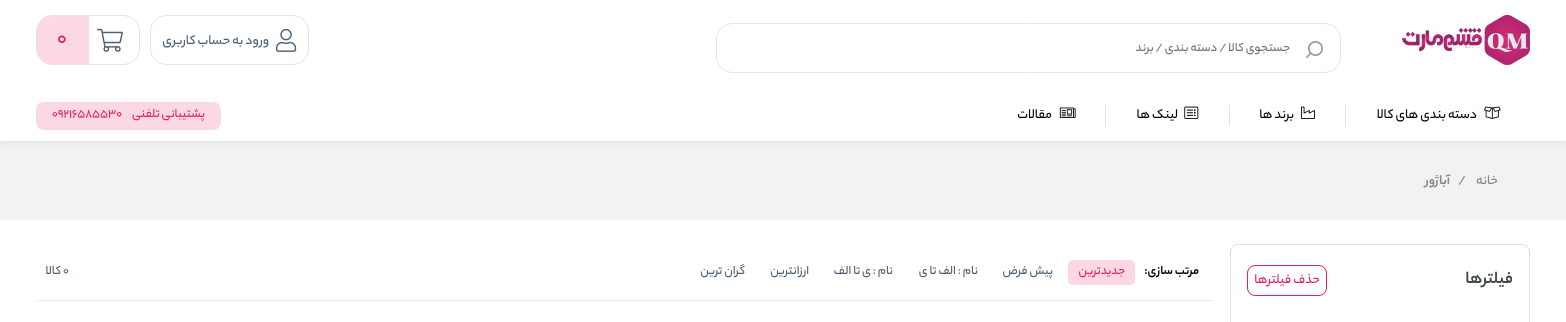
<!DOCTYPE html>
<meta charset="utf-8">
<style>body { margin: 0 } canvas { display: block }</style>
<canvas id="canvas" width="1566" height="322"></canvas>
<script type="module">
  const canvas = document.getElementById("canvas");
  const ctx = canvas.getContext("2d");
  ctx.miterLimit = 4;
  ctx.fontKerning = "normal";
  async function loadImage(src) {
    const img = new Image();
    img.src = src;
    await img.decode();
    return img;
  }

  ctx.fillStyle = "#f2f2f2";
  ctx.fillRect(0, 0, 1566, 322);
  ctx.fillStyle = "rgba(0, 0, 0, 0.05)";
  ctx.filter = "blur(1.5px)";
  ctx.beginPath();
  ctx.rect(0, 94, 1566, 50);
  ctx.fill();
  ctx.filter = "none";
  ctx.fillStyle = "#ffffff";
  ctx.fillRect(0, 0, 1566, 141);
  ctx.drawImage(await loadImage("img1.png"), 1401, 15, 129, 50);
  ctx.beginPath();
  ctx.roundRect(716.5, 23.5, 624, 49, 15.5);
  ctx.strokeStyle = "#e6e6e6";
  ctx.stroke();
  ctx.drawImage(await loadImage("img2.png"), 1306, 41, 17, 17);
  ctx.direction = "rtl";
  ctx.font = "500 13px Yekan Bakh";
  ctx.fillStyle = "#757575";
  ctx.fillText("جستجوی کالا / دسته بندی / برند", 1290, 51);
  ctx.beginPath();
  ctx.roundRect(150.5, 15.5, 158, 49, 15.5);
  ctx.strokeStyle = "#e4e4e4";
  ctx.stroke();
  ctx.drawImage(await loadImage("img3.png"), 276, 28, 21, 24);
  ctx.font = "500 14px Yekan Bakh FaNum";
  ctx.fillStyle = "#4a5f73";
  ctx.fillText("ورود به حساب کاربری", 269, 44);
  ctx.beginPath();
  ctx.roundRect(36.5, 15.5, 103, 49, 15.5);
  ctx.stroke();
  ctx.drawImage(await loadImage("img4.png"), 97, 28, 26, 24);
  ctx.fillStyle = "#fbd8e4";
  ctx.beginPath();
  ctx.roundRect(37, 16, 52, 48, [15, 0, 0, 15]);
  ctx.fill();
  ctx.direction = "ltr";
  ctx.font = "500 22px Yekan Bakh FaNum";
  ctx.fillStyle = "#e91e63";
  ctx.fillText("0", 57, 44);
  ctx.fillStyle = "#e3e3e3";
  ctx.fillRect(1345, 105, 1, 21);
  ctx.drawImage(await loadImage("img5.png"), 1484, 106, 17, 13);
  ctx.direction = "rtl";
  ctx.font = "500 14px Yekan Bakh FaNum";
  ctx.fillStyle = "#000000";
  ctx.fillText("دسته بندی های کالا", 1477, 118);
  ctx.fillStyle = "#e3e3e3";
  ctx.fillRect(1229, 105, 1, 21);
  ctx.drawImage(await loadImage("img6.png"), 1301, 106, 14, 13);
  ctx.fillStyle = "#000000";
  ctx.fillText("برند ها", 1294, 118);
  ctx.fillStyle = "#e3e3e3";
  ctx.fillRect(1105, 105, 1, 21);
  ctx.drawImage(await loadImage("img7.png"), 1184, 106, 15, 13);
  ctx.fillStyle = "#000000";
  ctx.fillText("لینک ها", 1178, 118);
  ctx.drawImage(await loadImage("img8.png"), 1059, 107, 17, 11);
  ctx.fillText("مقالات", 1052, 118);
  ctx.fillStyle = "#fbd8e4";
  ctx.beginPath();
  ctx.roundRect(36, 102, 185, 28, 8);
  ctx.fill();
  ctx.font = "500 13px Yekan Bakh FaNum";
  ctx.fillStyle = "#e91e63";
  ctx.fillText("پشتیبانی تلفنی", 205, 117);
  ctx.direction = "ltr";
  ctx.fillText("09216585530", 52, 117);
  ctx.direction = "rtl";
  ctx.font = "500 14px Yekan Bakh";
  ctx.fillStyle = "#81858b";
  ctx.fillText("خانه", 1498, 184);
  ctx.direction = "ltr";
  ctx.fillText("/", 1458, 184);
  ctx.direction = "rtl";
  ctx.font = "bold 14px Yekan Bakh";
  ctx.fillText("آباژور", 1450, 184);
  ctx.fillStyle = "#ffffff";
  ctx.fillRect(0, 220, 1566, 102);
  ctx.beginPath();
  ctx.roundRect(1230.5, 244.5, 299, 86, 7.5);
  ctx.strokeStyle = "#e0e0e2";
  ctx.stroke();
  ctx.font = "bold 18px Yekan Bakh FaNum";
  ctx.fillStyle = "#424750";
  ctx.fillText("فیلترها", 1513, 283);
  ctx.beginPath();
  ctx.roundRect(1247.5, 265.5, 79, 30, 7.5);
  ctx.strokeStyle = "#e91e63";
  ctx.stroke();
  ctx.font = "500 14px Yekan Bakh FaNum";
  ctx.fillStyle = "#e91e63";
  ctx.fillText("حذف فیلترها", 1320, 283);
  ctx.fillStyle = "#ebe9e9";
  ctx.fillRect(36, 300, 1178, 1);
  ctx.font = "bold 13px Yekan Bakh FaNum";
  ctx.fillStyle = "#000000";
  ctx.fillText("مرتب سازی:", 1199, 274);
  ctx.fillStyle = "#fbd8e4";
  ctx.beginPath();
  ctx.roundRect(1068, 260, 67, 25, 5);
  ctx.fill();
  ctx.font = "500 13px Yekan Bakh FaNum";
  ctx.fillStyle = "#e91e63";
  ctx.fillText("جدیدترین", 1125, 274);
  ctx.fillStyle = "#4a5f73";
  ctx.fillText("پیش فرض", 1053, 274);
  ctx.fillText("نام : الف تا ی", 978, 274);
  ctx.fillText("نام : ی تا الف", 893, 274);
  ctx.fillText("ارزانترین", 809, 274);
  ctx.fillText("گران ترین", 745, 274);
  ctx.direction = "ltr";
  ctx.fillText("0", 63, 274);
  ctx.direction = "rtl";
  ctx.fillText("کالا", 61, 274);
</script>
